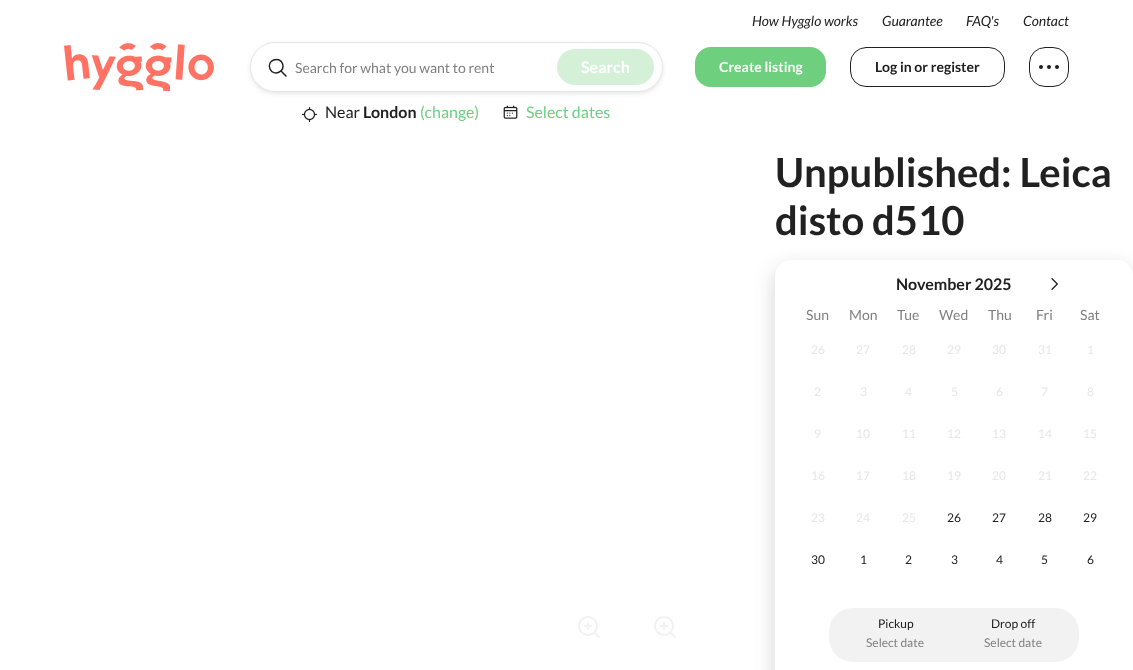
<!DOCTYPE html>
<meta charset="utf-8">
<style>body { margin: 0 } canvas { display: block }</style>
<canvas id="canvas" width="1133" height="670"></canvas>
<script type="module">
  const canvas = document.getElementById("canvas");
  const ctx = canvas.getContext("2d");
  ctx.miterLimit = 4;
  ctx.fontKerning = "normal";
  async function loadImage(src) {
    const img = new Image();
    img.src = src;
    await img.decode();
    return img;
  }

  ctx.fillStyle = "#ffffff";
  ctx.fillRect(0, 0, 1133, 670);
  ctx.font = "italic 14px Lato";
  ctx.fillStyle = "#212121";
  ctx.fillText("How Hygglo works", 752, 26);
  ctx.fillText("Guarantee", 882, 26);
  ctx.fillText("FAQ's", 966, 26);
  ctx.fillText("Contact", 1023, 26);
  ctx.drawImage(await loadImage("img1.png"), 64, 43, 150, 48);
  ctx.fillStyle = "rgba(26, 26, 26, 0.1)";
  ctx.filter = "blur(2px)";
  ctx.beginPath();
  ctx.roundRect(250, 44, 413, 50, 25);
  ctx.fill();
  ctx.filter = "none";
  ctx.fillStyle = "#ffffff";
  ctx.beginPath();
  ctx.roundRect(250.5, 42.5, 412, 49, 24.5);
  ctx.fill();
  ctx.strokeStyle = "#e6e6e6";
  ctx.stroke();
  ctx.beginPath();
  ctx.moveTo(270, 69);
  ctx.bezierCurveTo(273.5, 77, 286, 71.5, 282.5, 63.5);
  ctx.bezierCurveTo(279, 55.5, 266.5, 60.5, 270, 69);
  ctx.closePath();
  ctx.moveTo(281, 71);
  ctx.lineTo(286, 76);
  ctx.strokeStyle = "#212121";
  ctx.lineWidth = 1.5;
  ctx.lineCap = "round";
  ctx.lineJoin = "round";
  ctx.stroke();
  ctx.font = "14px Lato";
  ctx.fillStyle = "#808080";
  ctx.fillText("Search for what you want to rent", 295, 73);
  ctx.fillStyle = "#d4f1d8";
  ctx.beginPath();
  ctx.roundRect(557, 49, 97, 36, 18);
  ctx.fill();
  ctx.font = "bold 16px Lato";
  ctx.fillStyle = "#ffffff";
  ctx.fillText("Search", 581, 73);
  ctx.drawImage(await loadImage("img2.png"), 302, 107, 15, 15);
  ctx.font = "16px Lato";
  ctx.fillStyle = "#212121";
  ctx.fillText("Near", 325, 118);
  ctx.font = "bold 16px Lato";
  ctx.fillText("London", 363, 118);
  ctx.font = "16px Lato";
  ctx.fillStyle = "#6ecf7e";
  ctx.fillText("(change)", 420, 118);
  ctx.drawImage(await loadImage("img3.png"), 503, 105, 15, 14);
  ctx.fillText("Select dates", 526, 118);
  ctx.beginPath();
  ctx.roundRect(695, 47, 131, 40, 16);
  ctx.fill();
  ctx.font = "bold 14px Lato";
  ctx.fillStyle = "#ffffff";
  ctx.fillText("Create listing", 719, 72);
  ctx.beginPath();
  ctx.roundRect(850.5, 47.5, 154, 39, 15.5);
  ctx.lineWidth = 1;
  ctx.lineJoin = "miter";
  ctx.stroke();
  ctx.fillStyle = "#212121";
  ctx.fillText("Log in or register", 875, 72);
  ctx.beginPath();
  ctx.roundRect(1029.5, 47.5, 39, 39, 15.5);
  ctx.stroke();
  ctx.drawImage(await loadImage("img4.png"), 1039, 65, 20, 4);
  ctx.drawImage(await loadImage("img5.png"), 578, 616, 22, 22);
  ctx.drawImage(await loadImage("img5.png"), 654, 616, 22, 22);
  ctx.font = "bold 40px Lato";
  ctx.fillText("Unpublished: Leica", 775, 187);
  ctx.fillText("disto d510", 775, 235);
  ctx.fillStyle = "rgba(26, 26, 26, 0.2)";
  ctx.filter = "blur(10px)";
  ctx.beginPath();
  ctx.roundRect(775, 268, 358, 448, 16);
  ctx.fill();
  ctx.filter = "none";
  ctx.fillStyle = "#ffffff";
  ctx.beginPath();
  ctx.roundRect(775, 260, 358, 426, 16);
  ctx.fill();
  ctx.font = "bold 16px Lato";
  ctx.fillStyle = "#212121";
  ctx.fillText("November 2025", 896, 290);
  ctx.drawImage(await loadImage("img6.png"), 1051, 278, 7, 12);
  ctx.font = "14px Lato";
  ctx.fillStyle = "#808080";
  ctx.fillText("Sun", 806, 320);
  ctx.fillText("Mon", 849, 320);
  ctx.fillText("Tue", 897, 320);
  ctx.fillText("Wed", 939, 320);
  ctx.fillText("Thu", 988, 320);
  ctx.fillText("Fri", 1036, 320);
  ctx.fillText("Sat", 1080, 320);
  ctx.font = "12px Lato";
  ctx.fillStyle = "#e6e6e6";
  ctx.fillText("26", 811, 354);
  ctx.fillText("27", 856, 354);
  ctx.fillText("28", 902, 354);
  ctx.fillText("29", 947, 354);
  ctx.fillText("30", 992, 354);
  ctx.fillText("31", 1038, 354);
  ctx.fillText("1", 1087, 354);
  ctx.fillText("2", 814, 396);
  ctx.fillText("3", 860, 396);
  ctx.fillText("4", 905, 396);
  ctx.fillText("5", 951, 396);
  ctx.fillText("6", 996, 396);
  ctx.fillText("7", 1041, 396);
  ctx.fillText("8", 1087, 396);
  ctx.fillText("9", 814, 438);
  ctx.fillText("10", 856, 438);
  ctx.fillText("11", 902, 438);
  ctx.fillText("12", 947, 438);
  ctx.fillText("13", 992, 438);
  ctx.fillText("14", 1038, 438);
  ctx.fillText("15", 1083, 438);
  ctx.fillText("16", 811, 480);
  ctx.fillText("17", 856, 480);
  ctx.fillText("18", 902, 480);
  ctx.fillText("19", 947, 480);
  ctx.fillText("20", 992, 480);
  ctx.fillText("21", 1038, 480);
  ctx.fillText("22", 1083, 480);
  ctx.fillText("23", 811, 522);
  ctx.fillText("24", 856, 522);
  ctx.fillText("25", 902, 522);
  ctx.fillStyle = "#212121";
  ctx.fillText("26", 947, 522);
  ctx.fillText("27", 992, 522);
  ctx.fillText("28", 1038, 522);
  ctx.fillText("29", 1083, 522);
  ctx.fillText("30", 811, 564);
  ctx.fillText("1", 860, 564);
  ctx.fillText("2", 905, 564);
  ctx.fillText("3", 951, 564);
  ctx.fillText("4", 996, 564);
  ctx.fillText("5", 1041, 564);
  ctx.fillText("6", 1087, 564);
  ctx.fillStyle = "#f2f2f2";
  ctx.beginPath();
  ctx.roundRect(829, 608, 250, 54, 24);
  ctx.fill();
  ctx.fillStyle = "#212121";
  ctx.fillText("Pickup", 878, 628);
  ctx.fillStyle = "#808080";
  ctx.fillText("Select date", 866, 647);
  ctx.fillStyle = "#212121";
  ctx.fillText("Drop off", 991, 628);
  ctx.fillStyle = "#808080";
  ctx.fillText("Select date", 984, 647);
</script>
